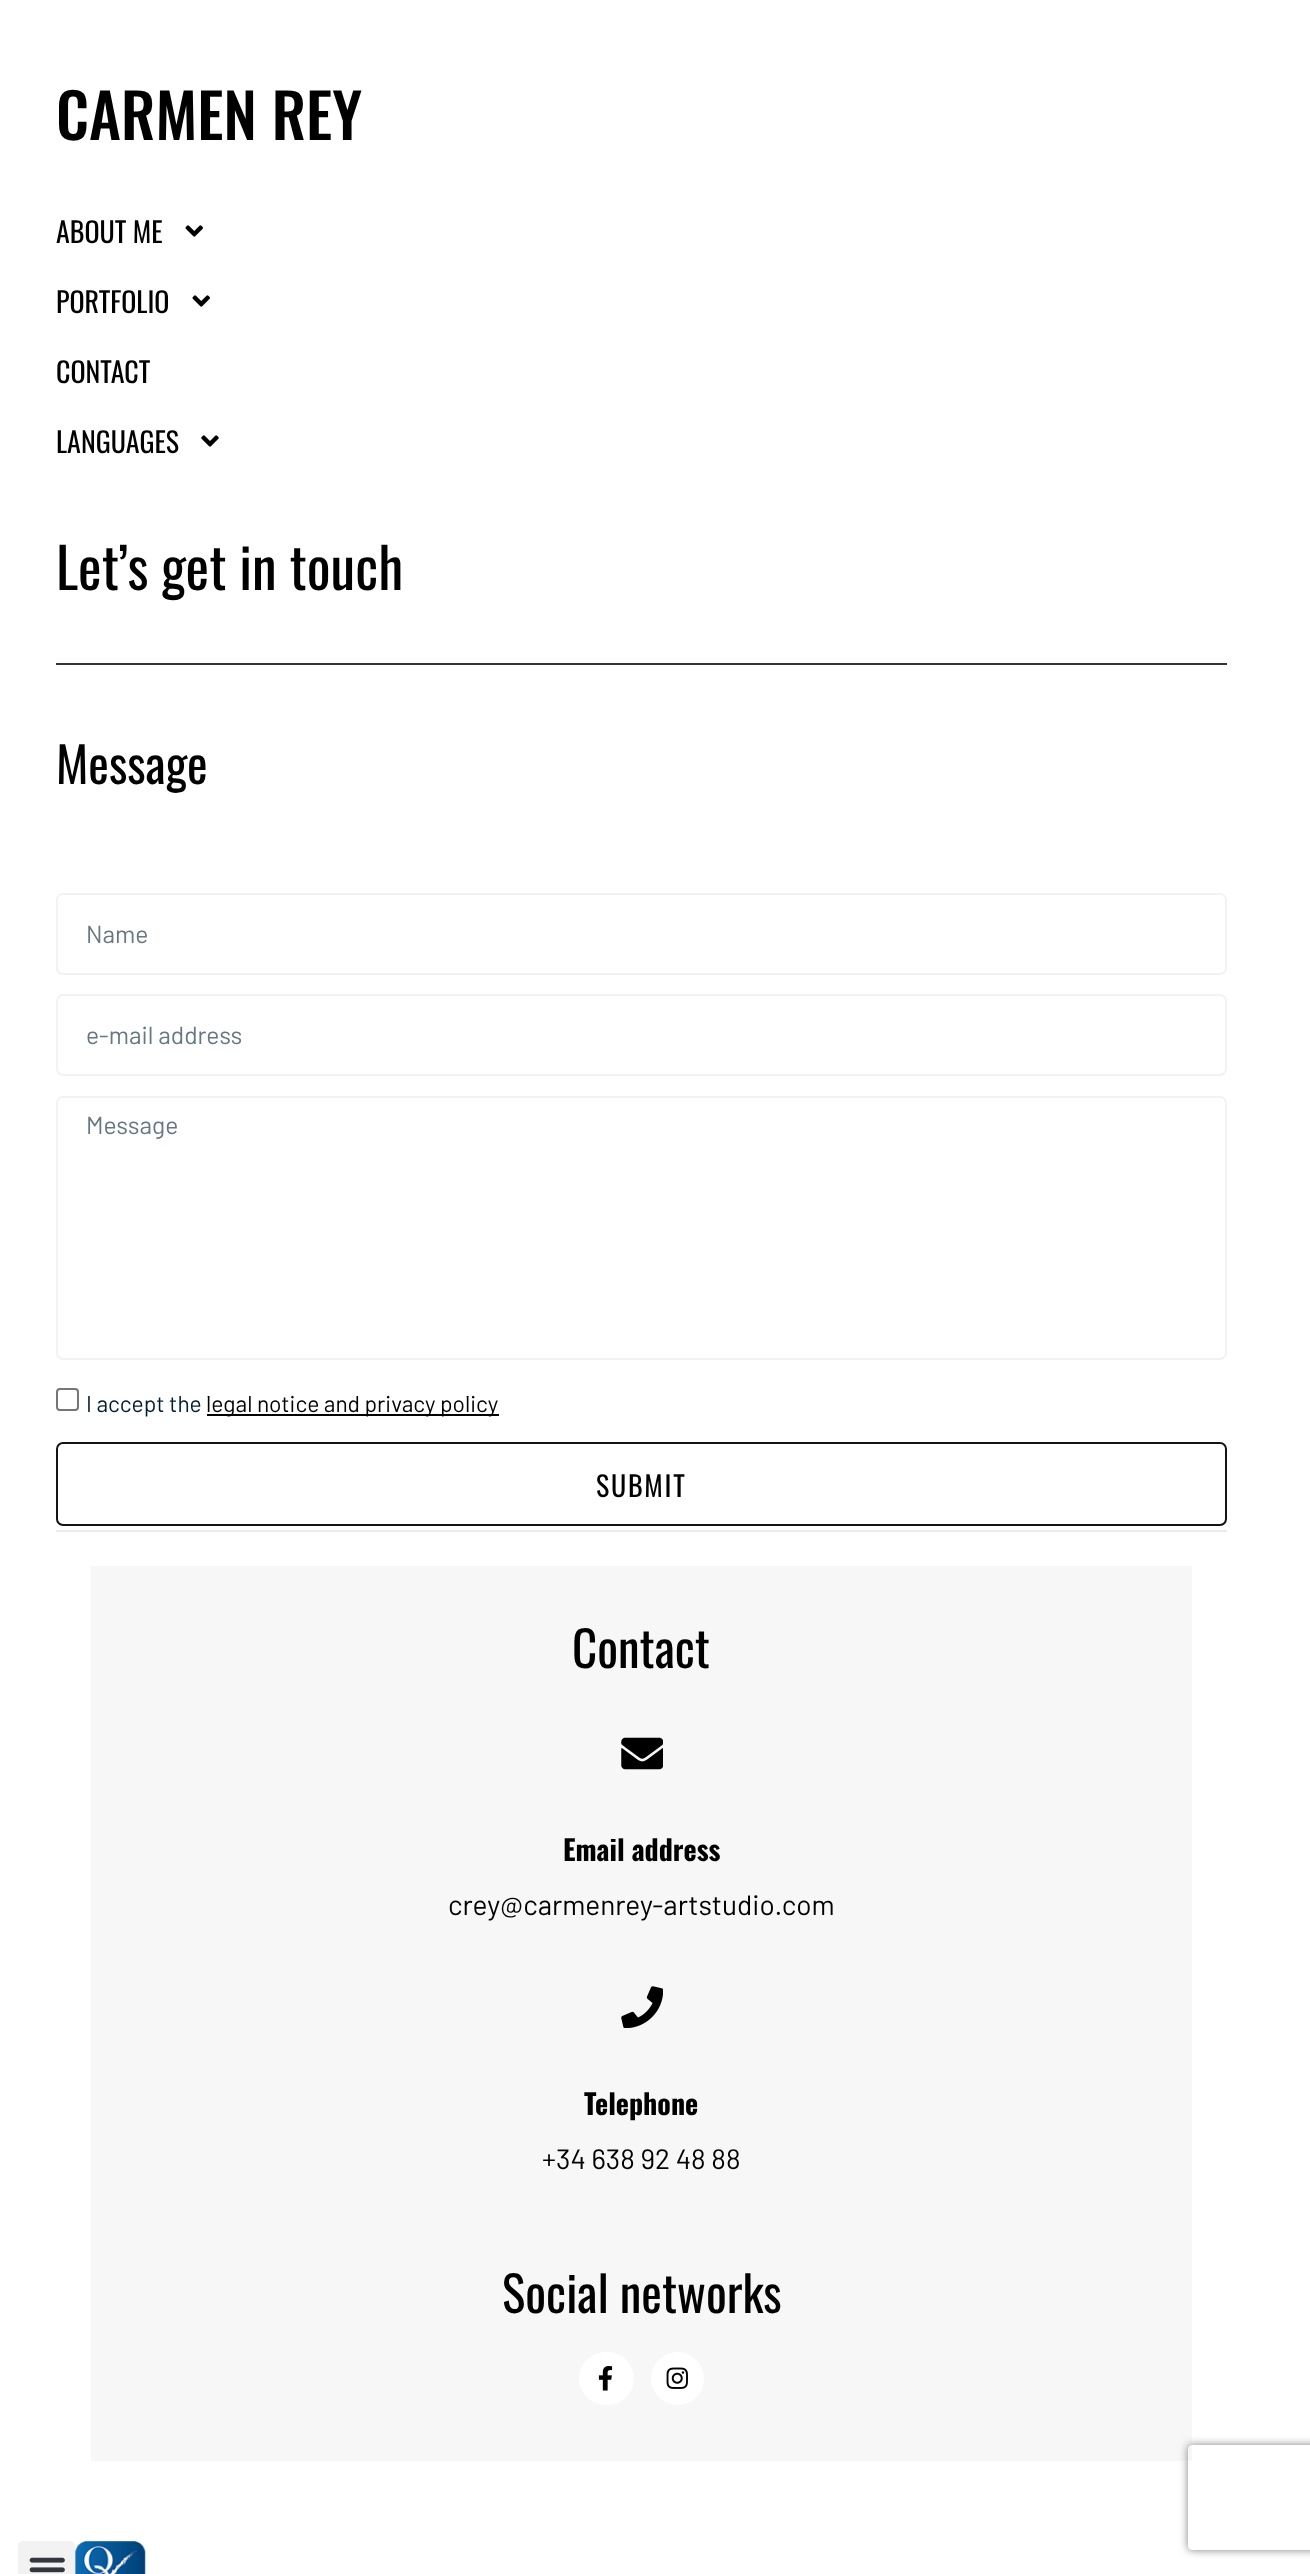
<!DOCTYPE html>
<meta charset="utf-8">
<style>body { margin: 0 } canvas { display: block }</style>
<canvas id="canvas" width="1310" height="2574"></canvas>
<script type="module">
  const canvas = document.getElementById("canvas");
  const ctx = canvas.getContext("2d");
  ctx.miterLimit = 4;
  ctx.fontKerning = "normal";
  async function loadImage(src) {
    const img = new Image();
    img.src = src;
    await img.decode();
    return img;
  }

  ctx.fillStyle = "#ffffff";
  ctx.fillRect(0, 0, 1310, 2574);
  ctx.font = "500 61.25px Oswald";
  ctx.fillStyle = "#000000";
  ctx.fillText("CARMEN REY", 56, 140);
  ctx.font = "28px Oswald";
  ctx.fillText("ABOUT ME", 56, 243);
  ctx.drawImage(await loadImage("img1.png"), 185, 225, 18, 12);
  ctx.fillText("PORTFOLIO", 56, 313);
  ctx.drawImage(await loadImage("img1.png"), 192, 295, 18, 12);
  ctx.fillText("CONTACT", 56, 383);
  ctx.fillText("LANGUAGES", 56, 453);
  ctx.drawImage(await loadImage("img2.png"), 201, 435, 18, 12);
  ctx.fillStyle = "#333333";
  ctx.fillRect(56, 663, 1171, 2);
  ctx.font = "56px Oswald";
  ctx.fillStyle = "#000000";
  ctx.fillText("Let’s get in touch", 56, 590);
  ctx.fillStyle = "#eaeae9";
  ctx.fillRect(56, 1530, 1171, 2);
  ctx.font = "49px Oswald";
  ctx.fillStyle = "#000000";
  ctx.fillText("Message", 56, 784);
  ctx.beginPath();
  ctx.roundRect(57, 894, 1169, 80, 6);
  ctx.strokeStyle = "#f2f2f2";
  ctx.lineWidth = 2;
  ctx.stroke();
  ctx.font = "24.5px Barlow";
  ctx.fillStyle = "#667783";
  ctx.fillText("Name", 86, 943);
  ctx.beginPath();
  ctx.roundRect(57, 995, 1169, 80, 6);
  ctx.stroke();
  ctx.fillText("e-mail address", 86, 1044);
  ctx.beginPath();
  ctx.roundRect(57, 1097, 1169, 262, 6);
  ctx.stroke();
  ctx.fillText("Message", 86, 1134);
  ctx.beginPath();
  ctx.roundRect(57, 1389, 21, 21, 3);
  ctx.strokeStyle = "#767676";
  ctx.stroke();
  ctx.font = "22.75px Barlow";
  ctx.fillStyle = "#001c31";
  ctx.fillText("I accept the", 86, 1412);
  ctx.fillStyle = "#000000";
  ctx.fillRect(207, 1414, 292, 2);
  ctx.fillText("legal notice and privacy policy", 206, 1412);
  ctx.beginPath();
  ctx.roundRect(57, 1443, 1169, 82, 6);
  ctx.strokeStyle = "#141414";
  ctx.stroke();
  ctx.letterSpacing = "1.75px";
  ctx.font = "28px Oswald";
  ctx.fillText("SUBMIT", 596, 1497);
  ctx.fillStyle = "#f7f7f7";
  ctx.fillRect(91, 1566, 1101, 895);
  ctx.save();
  ctx.beginPath();
  ctx.moveTo(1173, 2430);
  ctx.lineTo(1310, 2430);
  ctx.lineTo(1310, 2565);
  ctx.lineTo(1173, 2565);
  ctx.closePath();
  ctx.moveTo(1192, 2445);
  ctx.lineTo(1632, 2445);
  ctx.bezierCurveTo(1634, 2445, 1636, 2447, 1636, 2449);
  ctx.lineTo(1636, 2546);
  ctx.bezierCurveTo(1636, 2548, 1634, 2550, 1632, 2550);
  ctx.lineTo(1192, 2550);
  ctx.bezierCurveTo(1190, 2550, 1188, 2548, 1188, 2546);
  ctx.lineTo(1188, 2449);
  ctx.bezierCurveTo(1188, 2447, 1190, 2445, 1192, 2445);
  ctx.closePath();
  ctx.clip("evenodd");
  ctx.fillStyle = "#808080";
  ctx.filter = "blur(4.5px)";
  ctx.beginPath();
  ctx.roundRect(1188, 2445, 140, 105, 4);
  ctx.fill();
  ctx.filter = "none";
  ctx.restore();
  ctx.letterSpacing = "0px";
  ctx.font = "49px Oswald";
  ctx.fillStyle = "#000000";
  ctx.fillText("Contact", 572, 1668);
  ctx.drawImage(await loadImage("img3.png"), 621, 1737, 42, 33);
  ctx.font = "bold 28px Oswald";
  ctx.fillText("Email address", 563, 1861);
  ctx.font = "28px Barlow";
  ctx.fillText("crey@carmenrey-artstudio.com", 448, 1915);
  ctx.drawImage(await loadImage("img4.png"), 621, 1986, 42, 42);
  ctx.font = "bold 28px Oswald";
  ctx.fillText("Telephone", 584, 2115);
  ctx.font = "28px Barlow";
  ctx.fillText("+34 638 92 48 88", 542, 2169);
  ctx.font = "49px Oswald";
  ctx.fillText("Social networks", 502, 2313);
  ctx.fillStyle = "#ffffff";
  ctx.beginPath();
  ctx.roundRect(579, 2352, 55, 53, 26.5);
  ctx.fill();
  ctx.drawImage(await loadImage("img5.png"), 598, 2366, 15, 25);
  ctx.beginPath();
  ctx.arc(677.5, 2378.5, 26.5, 0, Math.PI * 2);
  ctx.fill();
  ctx.drawImage(await loadImage("img6.png"), 666, 2367, 22, 22);
  ctx.fillStyle = "#f2f2f2";
  ctx.beginPath();
  ctx.roundRect(18, 2541, 57, 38, 5);
  ctx.fill();
  ctx.drawImage(await loadImage("img7.png"), 29, 2557, 36, 16);
  ctx.drawImage(await loadImage("img8.png"), 75, 2541, 71, 33);
</script>
